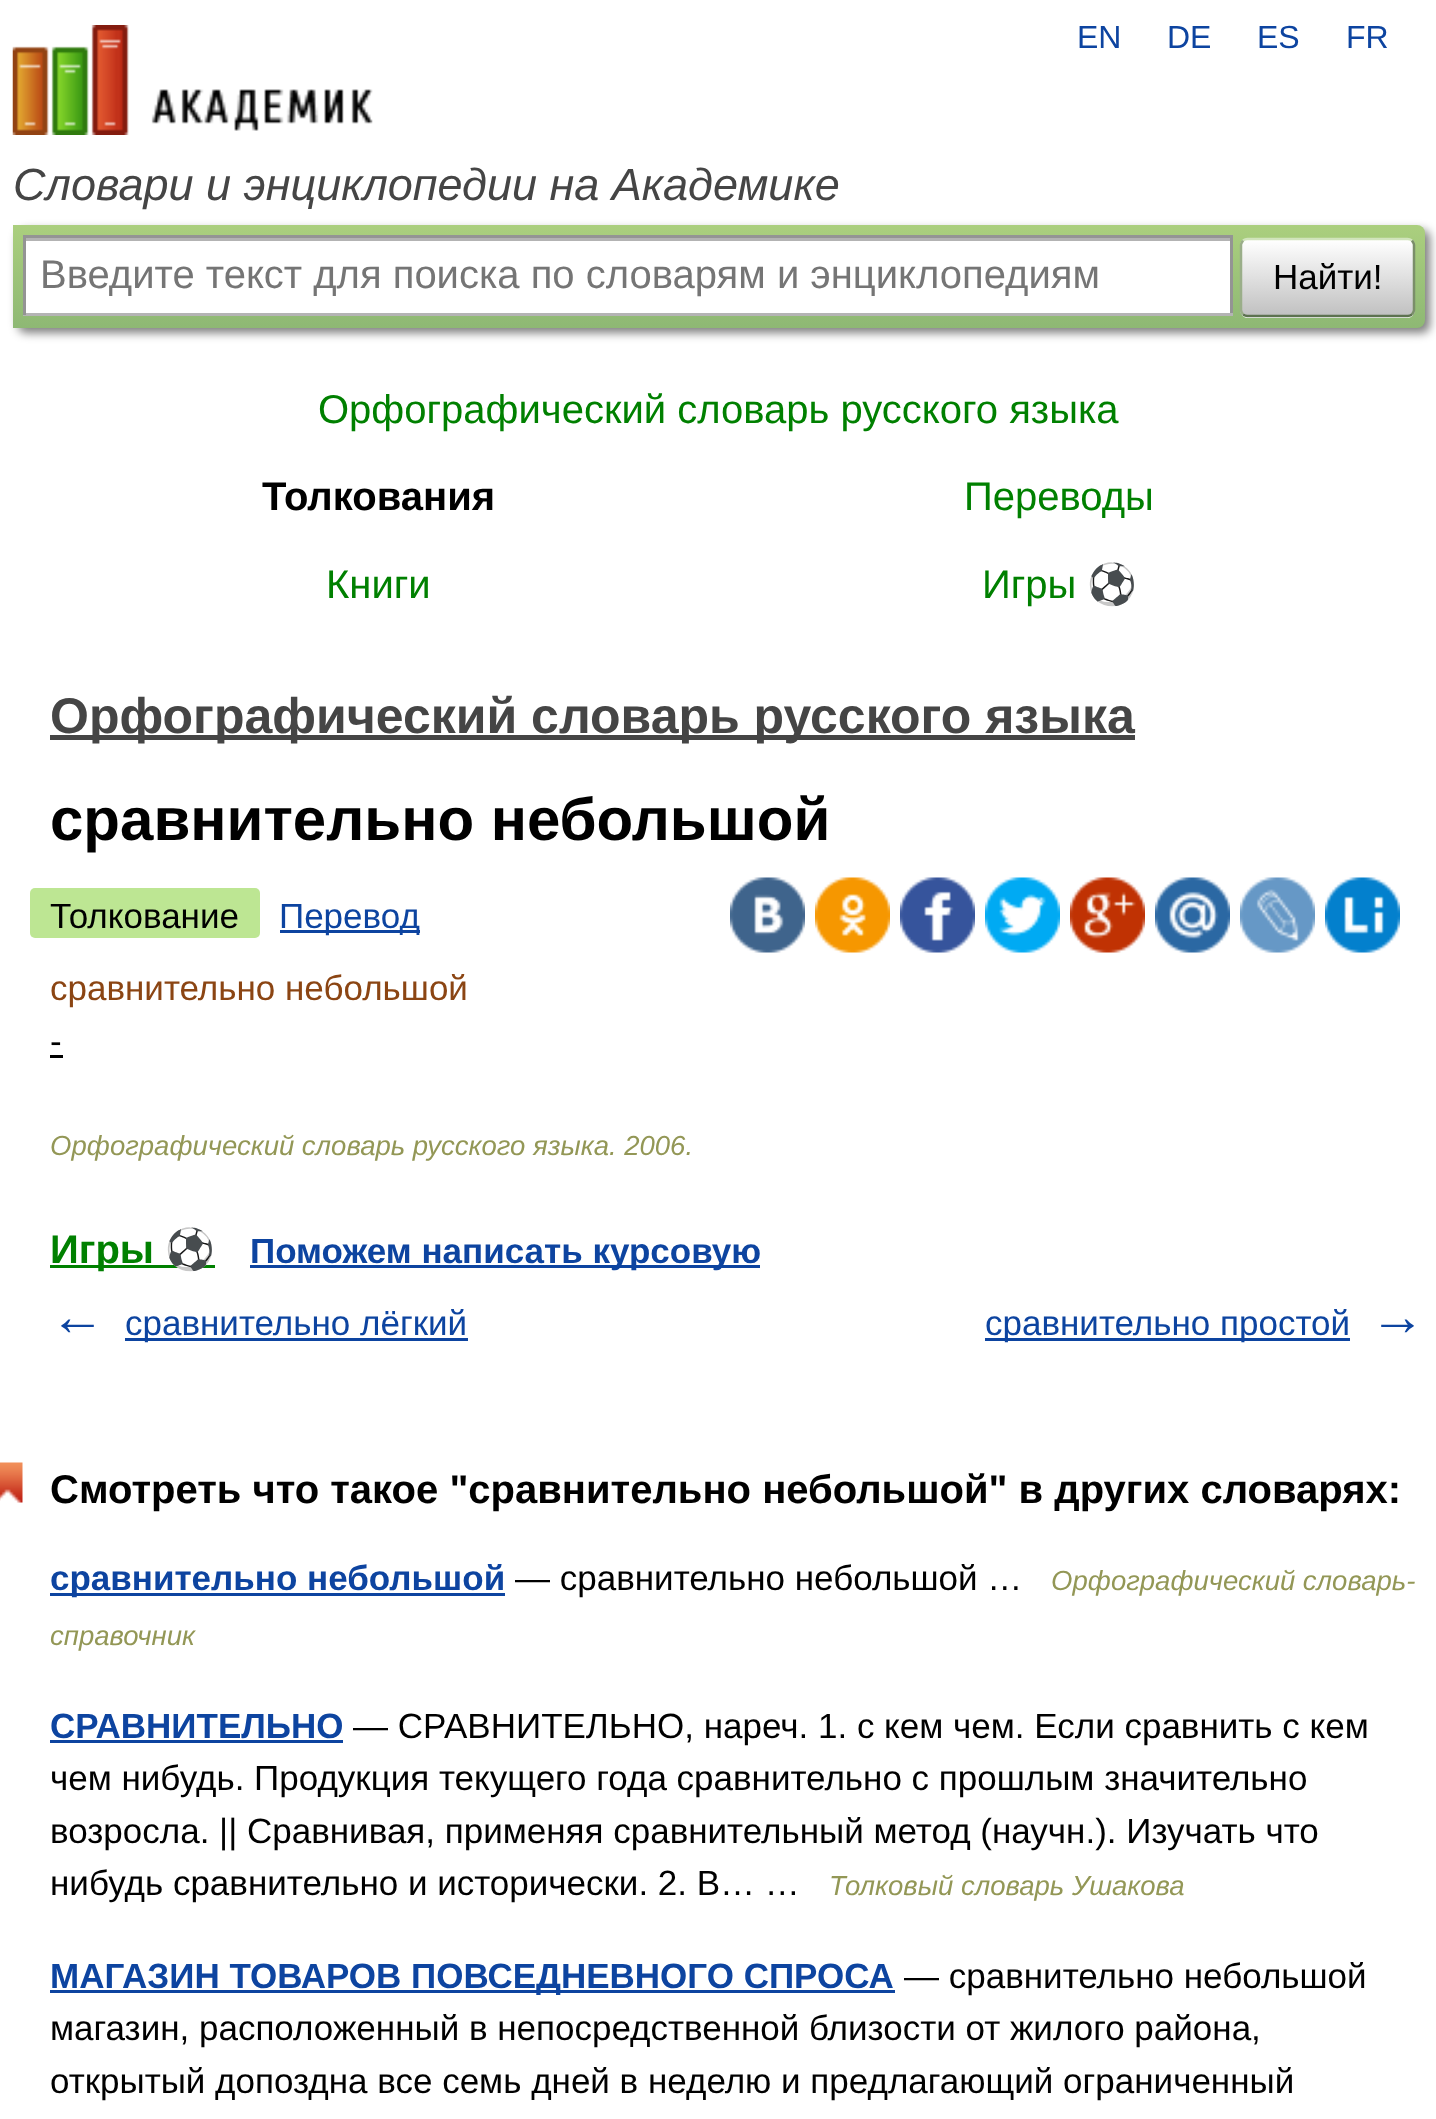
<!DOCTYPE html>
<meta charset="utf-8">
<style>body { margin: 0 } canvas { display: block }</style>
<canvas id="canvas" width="1436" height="2119"></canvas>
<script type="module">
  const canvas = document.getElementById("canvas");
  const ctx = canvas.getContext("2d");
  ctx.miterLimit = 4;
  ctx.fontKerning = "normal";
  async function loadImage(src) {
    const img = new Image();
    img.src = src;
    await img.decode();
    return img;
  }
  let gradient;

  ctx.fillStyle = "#ffffff";
  ctx.fillRect(0, 0, 1436, 2119);
  ctx.drawImage(await loadImage("img1.png"), 12, 25, 361, 110);
  ctx.font = "32px Liberation Sans";
  ctx.fillStyle = "#0d44a0";
  ctx.fillText("EN", 1077, 48);
  ctx.fillText("DE", 1167, 48);
  ctx.fillText("ES", 1257, 48);
  ctx.fillText("FR", 1346, 48);
  ctx.font = "italic 45px Liberation Sans";
  ctx.fillStyle = "#454545";
  ctx.fillText("Словари и энциклопедии на Академике", 13, 200);
  ctx.fillStyle = "rgba(0, 0, 0, 0.5)";
  ctx.filter = "blur(5px)";
  ctx.beginPath();
  ctx.roundRect(18, 230, 1412, 103, 8);
  ctx.fill();
  ctx.filter = "none";
  gradient = ctx.createLinearGradient(719, 225, 719, 328);
  gradient.addColorStop(0, "#abcf7e");
  gradient.addColorStop(1, "#8eb874");
  ctx.fillStyle = gradient;
  ctx.beginPath();
  ctx.roundRect(13, 225, 1412, 103, [0, 8, 8, 0]);
  ctx.fill();
  ctx.fillStyle = "#ffffff";
  ctx.fillRect(26, 241, 1204, 72);
  ctx.fillStyle = "#b3b3b3";
  ctx.fillRect(25, 238, 1205, 3);
  ctx.fillStyle = "#949494";
  ctx.fillRect(23, 235, 1210, 3);
  ctx.fillRect(1230, 235, 3, 80);
  ctx.fillStyle = "#b4b4b4";
  ctx.fillRect(23, 313, 1210, 3);
  ctx.fillStyle = "#949494";
  ctx.fillRect(23, 235, 3, 80);
  ctx.font = "40px Liberation Sans";
  ctx.fillStyle = "#757575";
  ctx.fillText("Введите текст для поиска по словарям и энциклопедиям", 40, 288);
  ctx.save();
  ctx.beginPath();
  ctx.roundRect(1240, 238, 175, 80, 8);
  ctx.clip();
  gradient = ctx.createLinearGradient(1328, 240, 1328, 315);
  gradient.addColorStop(0, "#ffffff");
  gradient.addColorStop(1, "#c1c1c1");
  ctx.fillStyle = gradient;
  ctx.fillRect(1240, 240, 175, 75);
  gradient = ctx.createLinearGradient(1328, 315, 1328, 390);
  gradient.addColorStop(0, "#ffffff");
  gradient.addColorStop(1, "#c1c1c1");
  ctx.fillStyle = gradient;
  ctx.fillRect(1240, 315, 175, 3);
  ctx.restore();
  ctx.beginPath();
  ctx.moveTo(1243, 240.5);
  ctx.bezierCurveTo(1244.5, 239.5, 1246, 239, 1247.5, 239);
  ctx.lineTo(1407.5, 239);
  ctx.bezierCurveTo(1409, 239, 1410.5, 239.5, 1412, 240.5);
  ctx.strokeStyle = "#d1e4bc";
  ctx.lineWidth = 2.5;
  ctx.stroke();
  ctx.beginPath();
  ctx.moveTo(1412, 240.5);
  ctx.bezierCurveTo(1413, 242, 1414, 243.5, 1414, 245);
  ctx.lineTo(1414, 310);
  ctx.bezierCurveTo(1414, 311.5, 1413, 313, 1412, 314.5);
  ctx.strokeStyle = "#7a8e69";
  ctx.stroke();
  ctx.beginPath();
  ctx.moveTo(1412, 314.5);
  ctx.bezierCurveTo(1410.5, 315.5, 1409, 316, 1407.5, 316);
  ctx.lineTo(1247.5, 316);
  ctx.bezierCurveTo(1246, 316, 1244.5, 315.5, 1243, 314.5);
  ctx.strokeStyle = "#5d7250";
  ctx.stroke();
  ctx.beginPath();
  ctx.moveTo(1243, 314.5);
  ctx.bezierCurveTo(1242, 313, 1241, 311.5, 1241, 310);
  ctx.lineTo(1241, 245);
  ctx.bezierCurveTo(1241, 243.5, 1242, 242, 1243, 240.5);
  ctx.strokeStyle = "#9aae89";
  ctx.stroke();
  ctx.font = "35px Liberation Sans";
  ctx.fillStyle = "#000000";
  ctx.fillText("Найти!", 1273, 289);
  ctx.font = "40px Liberation Sans";
  ctx.fillStyle = "#008000";
  ctx.fillText("Орфографический словарь русского языка", 318, 423);
  ctx.font = "bold 40px Liberation Sans";
  ctx.fillStyle = "#000000";
  ctx.fillText("Толкования", 262, 510);
  ctx.font = "40px Liberation Sans";
  ctx.fillStyle = "#008000";
  ctx.fillText("Переводы", 964, 510);
  ctx.fillText("Книги", 326, 598);
  ctx.fillText("Игры", 982, 598);
  ctx.font = "40px Noto Color Emoji";
  ctx.fillText("⚽", 1087, 598);
  ctx.fillStyle = "#454545";
  ctx.fillRect(50, 735, 1085, 5);
  ctx.font = "bold 50px Liberation Sans";
  ctx.fillText("Орфографический словарь русского языка", 50, 733);
  ctx.font = "bold 60px Liberation Sans";
  ctx.fillStyle = "#000000";
  ctx.fillText("сравнительно небольшой", 50, 840);
  ctx.fillStyle = "#bde693";
  ctx.beginPath();
  ctx.roundRect(30, 888, 230, 50, 5);
  ctx.fill();
  ctx.font = "35px Liberation Sans";
  ctx.fillStyle = "#000000";
  ctx.fillText("Толкование", 50, 928);
  ctx.fillStyle = "#0d44a0";
  ctx.fillRect(280, 930, 140, 3);
  ctx.fillText("Перевод", 279, 928);
  ctx.drawImage(await loadImage("img2.png"), 730, 877, 75, 76);
  ctx.drawImage(await loadImage("img3.png"), 815, 877, 75, 76);
  ctx.drawImage(await loadImage("img4.png"), 900, 877, 75, 76);
  ctx.drawImage(await loadImage("img5.png"), 985, 877, 75, 76);
  ctx.drawImage(await loadImage("img6.png"), 1070, 877, 75, 76);
  ctx.drawImage(await loadImage("img7.png"), 1155, 877, 75, 76);
  ctx.drawImage(await loadImage("img8.png"), 1240, 877, 75, 76);
  ctx.drawImage(await loadImage("img9.png"), 1325, 877, 75, 76);
  ctx.fillStyle = "#8b4513";
  ctx.fillText("сравнительно небольшой", 50, 1000);
  ctx.fillStyle = "#000000";
  ctx.fillText("-", 50, 1053);
  ctx.fillRect(50, 1055, 13, 3);
  ctx.font = "italic 27.5px Liberation Sans";
  ctx.fillStyle = "#939756";
  ctx.fillText("Орфографический словарь русского языка. 2006.", 50, 1155);
  ctx.fillStyle = "#008000";
  ctx.fillRect(50, 1265, 165, 3);
  ctx.font = "bold 40px Liberation Sans";
  ctx.fillText("Игры", 50, 1263);
  ctx.font = "bold 40px Noto Color Emoji";
  ctx.fillText("⚽", 165, 1263);
  ctx.fillStyle = "#0d44a0";
  ctx.fillRect(250, 1265, 510, 3);
  ctx.font = "bold 35px Liberation Sans";
  ctx.fillText("Поможем написать курсовую", 250, 1263);
  ctx.font = "bold 55px Liberation Sans";
  ctx.fillText("←", 50, 1335);
  ctx.fillRect(125, 1338, 343, 3);
  ctx.font = "35px Liberation Sans";
  ctx.fillText("сравнительно лёгкий", 125, 1335);
  ctx.fillRect(985, 1338, 365, 3);
  ctx.fillText("сравнительно простой", 985, 1335);
  ctx.font = "bold 55px Liberation Sans";
  ctx.fillText("→", 1370, 1335);
  ctx.drawImage(await loadImage("img10.png"), 0, 1462, 23, 41);
  ctx.font = "bold 40px Liberation Sans";
  ctx.fillStyle = "#000000";
  ctx.fillText("Смотреть что такое \"сравнительно небольшой\" в других словарях:", 50, 1503);
  ctx.fillStyle = "#0d44a0";
  ctx.fillRect(50, 1593, 455, 3);
  ctx.font = "bold 35px Liberation Sans";
  ctx.fillText("сравнительно небольшой", 50, 1590);
  ctx.font = "35px Liberation Sans";
  ctx.fillStyle = "#000000";
  ctx.fillText("— сравнительно небольшой …", 515, 1590);
  ctx.font = "italic 27.5px Liberation Sans";
  ctx.fillStyle = "#939756";
  ctx.fillText("Орфографический словарь-", 1051, 1590);
  ctx.fillText("справочник", 50, 1645);
  ctx.font = "bold 35px Liberation Sans";
  ctx.fillStyle = "#0d44a0";
  ctx.fillText("СРАВНИТЕЛЬНО", 50, 1738);
  ctx.fillRect(50, 1740, 293, 3);
  ctx.font = "35px Liberation Sans";
  ctx.fillStyle = "#000000";
  ctx.fillText("— СРАВНИТЕЛЬНО, нареч. 1. с кем чем. Если сравнить с кем", 353, 1738);
  ctx.fillText("чем нибудь. Продукция текущего года сравнительно с прошлым значительно", 50, 1790);
  ctx.fillText("возросла. || Сравнивая, применяя сравнительный метод (научн.). Изучать что", 50, 1843);
  ctx.fillText("нибудь сравнительно и исторически. 2. В… …", 50, 1895);
  ctx.font = "italic 27.5px Liberation Sans";
  ctx.fillStyle = "#939756";
  ctx.fillText("Толковый словарь Ушакова", 829, 1895);
  ctx.fillStyle = "#0d44a0";
  ctx.fillRect(50, 1990, 845, 3);
  ctx.font = "bold 35px Liberation Sans";
  ctx.fillText("МАГАЗИН ТОВАРОВ ПОВСЕДНЕВНОГО СПРОСА", 50, 1988);
  ctx.font = "35px Liberation Sans";
  ctx.fillStyle = "#000000";
  ctx.fillText("— сравнительно небольшой", 904, 1988);
  ctx.fillText("магазин, расположенный в непосредственной близости от жилого района,", 50, 2040);
  ctx.fillText("открытый допоздна все семь дней в неделю и предлагающий ограниченный", 50, 2093);
</script>
